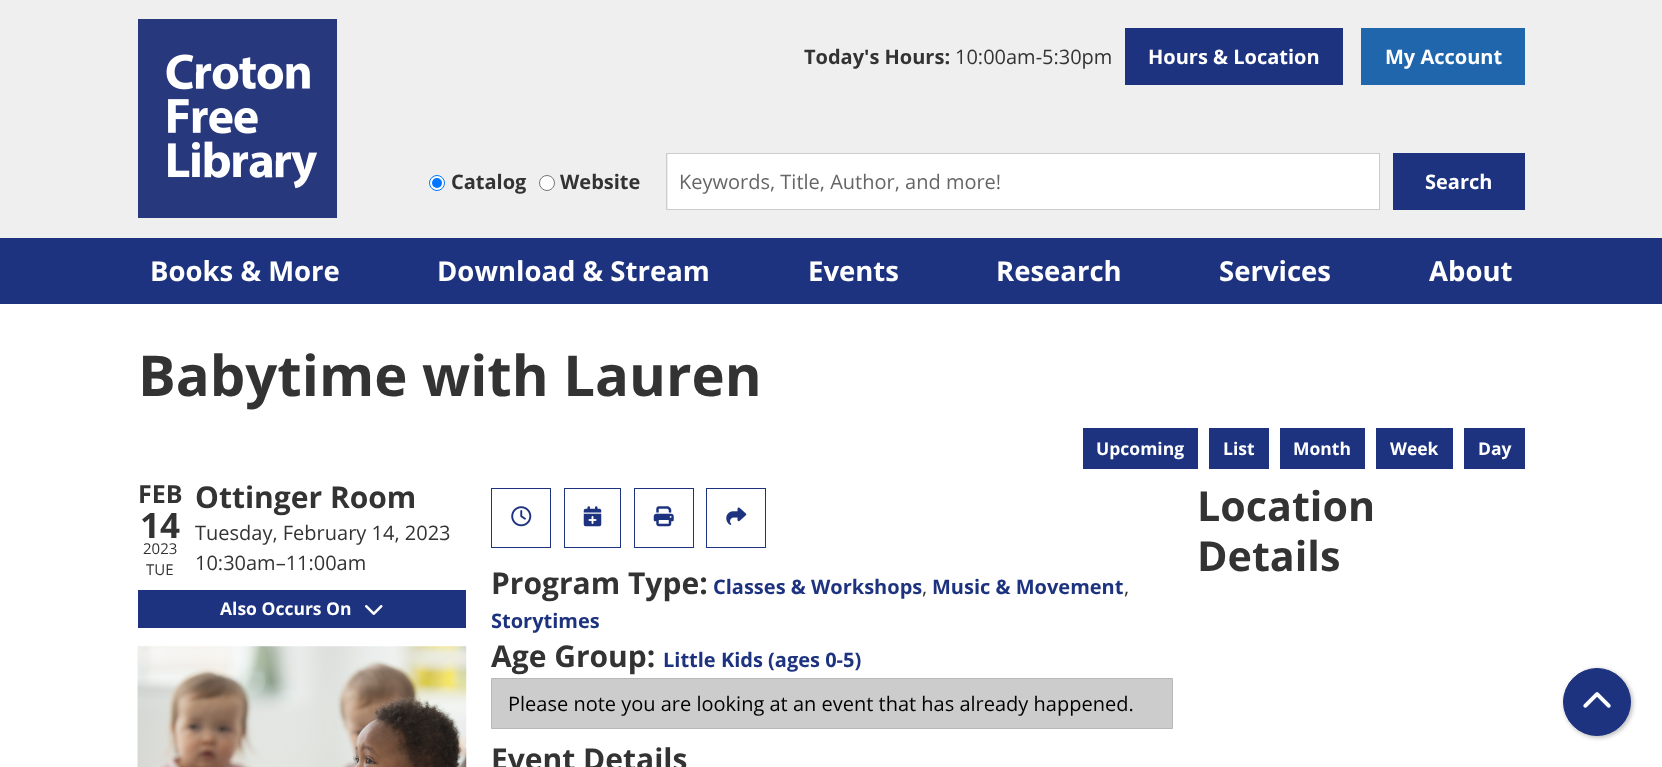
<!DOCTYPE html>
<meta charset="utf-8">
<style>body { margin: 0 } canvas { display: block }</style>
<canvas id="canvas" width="1662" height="767"></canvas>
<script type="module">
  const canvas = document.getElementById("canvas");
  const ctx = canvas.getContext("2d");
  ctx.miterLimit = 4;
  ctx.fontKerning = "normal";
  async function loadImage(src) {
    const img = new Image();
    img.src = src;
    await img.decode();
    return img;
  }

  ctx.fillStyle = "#ffffff";
  ctx.fillRect(0, 0, 1662, 767);
  ctx.fillStyle = "#efefef";
  ctx.fillRect(0, 0, 1662, 238);
  ctx.drawImage(await loadImage("img1.png"), 138, 19, 199, 199);
  ctx.font = "bold 20px Open Sans";
  ctx.fillStyle = "#333333";
  ctx.fillText("Today's Hours:", 804, 64);
  ctx.font = "20px Open Sans";
  ctx.fillText("10:00am-5:30pm", 955, 64);
  ctx.fillStyle = "#1d337f";
  ctx.fillRect(1125, 28, 218, 57);
  ctx.font = "bold 20px Open Sans";
  ctx.fillStyle = "#ffffff";
  ctx.fillText("Hours & Location", 1148, 64);
  ctx.fillStyle = "#1f66ad";
  ctx.fillRect(1361, 28, 164, 57);
  ctx.fillStyle = "#ffffff";
  ctx.fillText("My Account", 1385, 64);
  ctx.beginPath();
  ctx.arc(437, 183, 7.5, 0, Math.PI * 2);
  ctx.fill();
  ctx.strokeStyle = "#0075ff";
  ctx.stroke();
  ctx.fillStyle = "#0075ff";
  ctx.beginPath();
  ctx.arc(437, 183, 5, 0, Math.PI * 2);
  ctx.fill();
  ctx.fillStyle = "#333333";
  ctx.fillText("Catalog", 451, 189);
  ctx.fillStyle = "#ffffff";
  ctx.beginPath();
  ctx.arc(547, 183, 7.5, 0, Math.PI * 2);
  ctx.fill();
  ctx.strokeStyle = "#767676";
  ctx.stroke();
  ctx.fillStyle = "#333333";
  ctx.fillText("Website", 560, 189);
  ctx.fillStyle = "#ffffff";
  ctx.fillRect(668, 154, 711, 55);
  ctx.strokeStyle = "#cccccc";
  ctx.strokeRect(666.5, 153.5, 713, 56);
  ctx.font = "20px Open Sans";
  ctx.fillStyle = "#666666";
  ctx.fillText("Keywords, Title, Author, and more!", 679, 189);
  ctx.fillStyle = "#1d337f";
  ctx.fillRect(1393, 153, 132, 57);
  ctx.font = "bold 20px Open Sans";
  ctx.fillStyle = "#ffffff";
  ctx.fillText("Search", 1425, 189);
  ctx.fillStyle = "#1d337f";
  ctx.fillRect(0, 238, 1662, 66);
  ctx.font = "bold 27.5px Open Sans";
  ctx.fillStyle = "#ffffff";
  ctx.fillText("Books & More", 150, 281);
  ctx.fillText("Download & Stream", 437, 281);
  ctx.fillText("Events", 808, 281);
  ctx.fillText("Research", 996, 281);
  ctx.fillText("Services", 1219, 281);
  ctx.fillText("About", 1429, 281);
  ctx.font = "bold 56.25px Open Sans";
  ctx.fillStyle = "#333333";
  ctx.fillText("Babytime with Lauren", 138, 396);
  ctx.fillStyle = "#1d337f";
  ctx.fillRect(1083, 428, 115, 41);
  ctx.font = "bold 17.5px Open Sans";
  ctx.fillStyle = "#ffffff";
  ctx.fillText("Upcoming", 1096, 455);
  ctx.fillStyle = "#1d337f";
  ctx.fillRect(1209, 428, 60, 41);
  ctx.fillStyle = "#ffffff";
  ctx.fillText("List", 1223, 455);
  ctx.fillStyle = "#1d337f";
  ctx.fillRect(1280, 428, 85, 41);
  ctx.fillStyle = "#ffffff";
  ctx.fillText("Month", 1293, 455);
  ctx.fillStyle = "#1d337f";
  ctx.fillRect(1376, 428, 77, 41);
  ctx.fillStyle = "#ffffff";
  ctx.fillText("Week", 1390, 455);
  ctx.fillStyle = "#1d337f";
  ctx.fillRect(1464, 428, 61, 41);
  ctx.fillStyle = "#ffffff";
  ctx.fillText("Day", 1478, 455);
  ctx.font = "bold 25px Open Sans";
  ctx.fillStyle = "#333333";
  ctx.fillText("FEB", 138, 503);
  ctx.font = "bold 35px Open Sans";
  ctx.fillText("14", 140, 538);
  ctx.font = "15px Open Sans";
  ctx.fillText("2023", 143, 554);
  ctx.fillText("TUE", 146, 575);
  ctx.font = "bold 30px Open Sans";
  ctx.fillText("Ottinger Room", 195, 508);
  ctx.font = "20px Open Sans";
  ctx.fillText("Tuesday, February 14, 2023", 195, 540);
  ctx.fillText("10:30am–11:00am", 195, 570);
  ctx.fillStyle = "#1d337f";
  ctx.fillRect(138, 590, 328, 38);
  ctx.font = "bold 17.5px Open Sans";
  ctx.fillStyle = "#ffffff";
  ctx.fillText("Also Occurs On", 220, 615);
  ctx.drawImage(await loadImage("img2.png"), 365, 605, 18, 10);
  ctx.drawImage(await loadImage("img3.png"), 137, 646, 330, 121);
  ctx.font = "bold 41.25px Open Sans";
  ctx.fillStyle = "#333333";
  ctx.fillText("Location", 1197, 521);
  ctx.fillText("Details", 1197, 571);
  ctx.strokeStyle = "#1d337f";
  ctx.strokeRect(491.5, 488.5, 59, 59);
  ctx.drawImage(await loadImage("img4.png"), 511, 506, 21, 21);
  ctx.strokeRect(564.5, 488.5, 56, 59);
  ctx.drawImage(await loadImage("img5.png"), 583, 506, 19, 21);
  ctx.strokeRect(634.5, 488.5, 59, 59);
  ctx.drawImage(await loadImage("img6.png"), 653, 506, 21, 21);
  ctx.strokeRect(706.5, 488.5, 59, 59);
  ctx.drawImage(await loadImage("img7.png"), 726, 507, 21, 18);
  ctx.font = "bold 30px Open Sans";
  ctx.fillText("Program Type:", 491, 594);
  ctx.font = "bold 20px Open Sans";
  ctx.fillStyle = "#1d337f";
  ctx.fillText("Classes & Workshops", 713, 594);
  ctx.font = "20px Open Sans";
  ctx.fillStyle = "#333333";
  ctx.fillText(",", 922, 594);
  ctx.font = "bold 20px Open Sans";
  ctx.fillStyle = "#1d337f";
  ctx.fillText("Music & Movement", 932, 594);
  ctx.font = "20px Open Sans";
  ctx.fillStyle = "#333333";
  ctx.fillText(",", 1124, 594);
  ctx.font = "bold 20px Open Sans";
  ctx.fillStyle = "#1d337f";
  ctx.fillText("Storytimes", 491, 628);
  ctx.font = "bold 30px Open Sans";
  ctx.fillStyle = "#333333";
  ctx.fillText("Age Group:", 491, 667);
  ctx.font = "bold 20px Open Sans";
  ctx.fillStyle = "#1d337f";
  ctx.fillText("Little Kids (ages 0-5)", 663, 667);
  ctx.fillStyle = "#cccccc";
  ctx.beginPath();
  ctx.rect(491.5, 678.5, 681, 50);
  ctx.fill();
  ctx.strokeStyle = "#b8b8b8";
  ctx.stroke();
  ctx.font = "20px Open Sans";
  ctx.fillStyle = "#000000";
  ctx.fillText("Please note you are looking at an event that has already happened.", 508, 711);
  ctx.font = "bold 30px Open Sans";
  ctx.fillStyle = "#333333";
  ctx.fillText("Event Details", 491, 770);
  ctx.fillStyle = "rgba(0, 0, 0, 0.25)";
  ctx.filter = "blur(2px)";
  ctx.beginPath();
  ctx.roundRect(1564, 669, 69, 69, 34.5);
  ctx.fill();
  ctx.filter = "none";
  ctx.fillStyle = "#1d337f";
  ctx.beginPath();
  ctx.arc(1597, 702, 33.5, 0, Math.PI * 2);
  ctx.fill();
  ctx.strokeStyle = "#1d337f";
  ctx.stroke();
  ctx.drawImage(await loadImage("img8.png"), 1583, 692, 28, 16);
</script>
